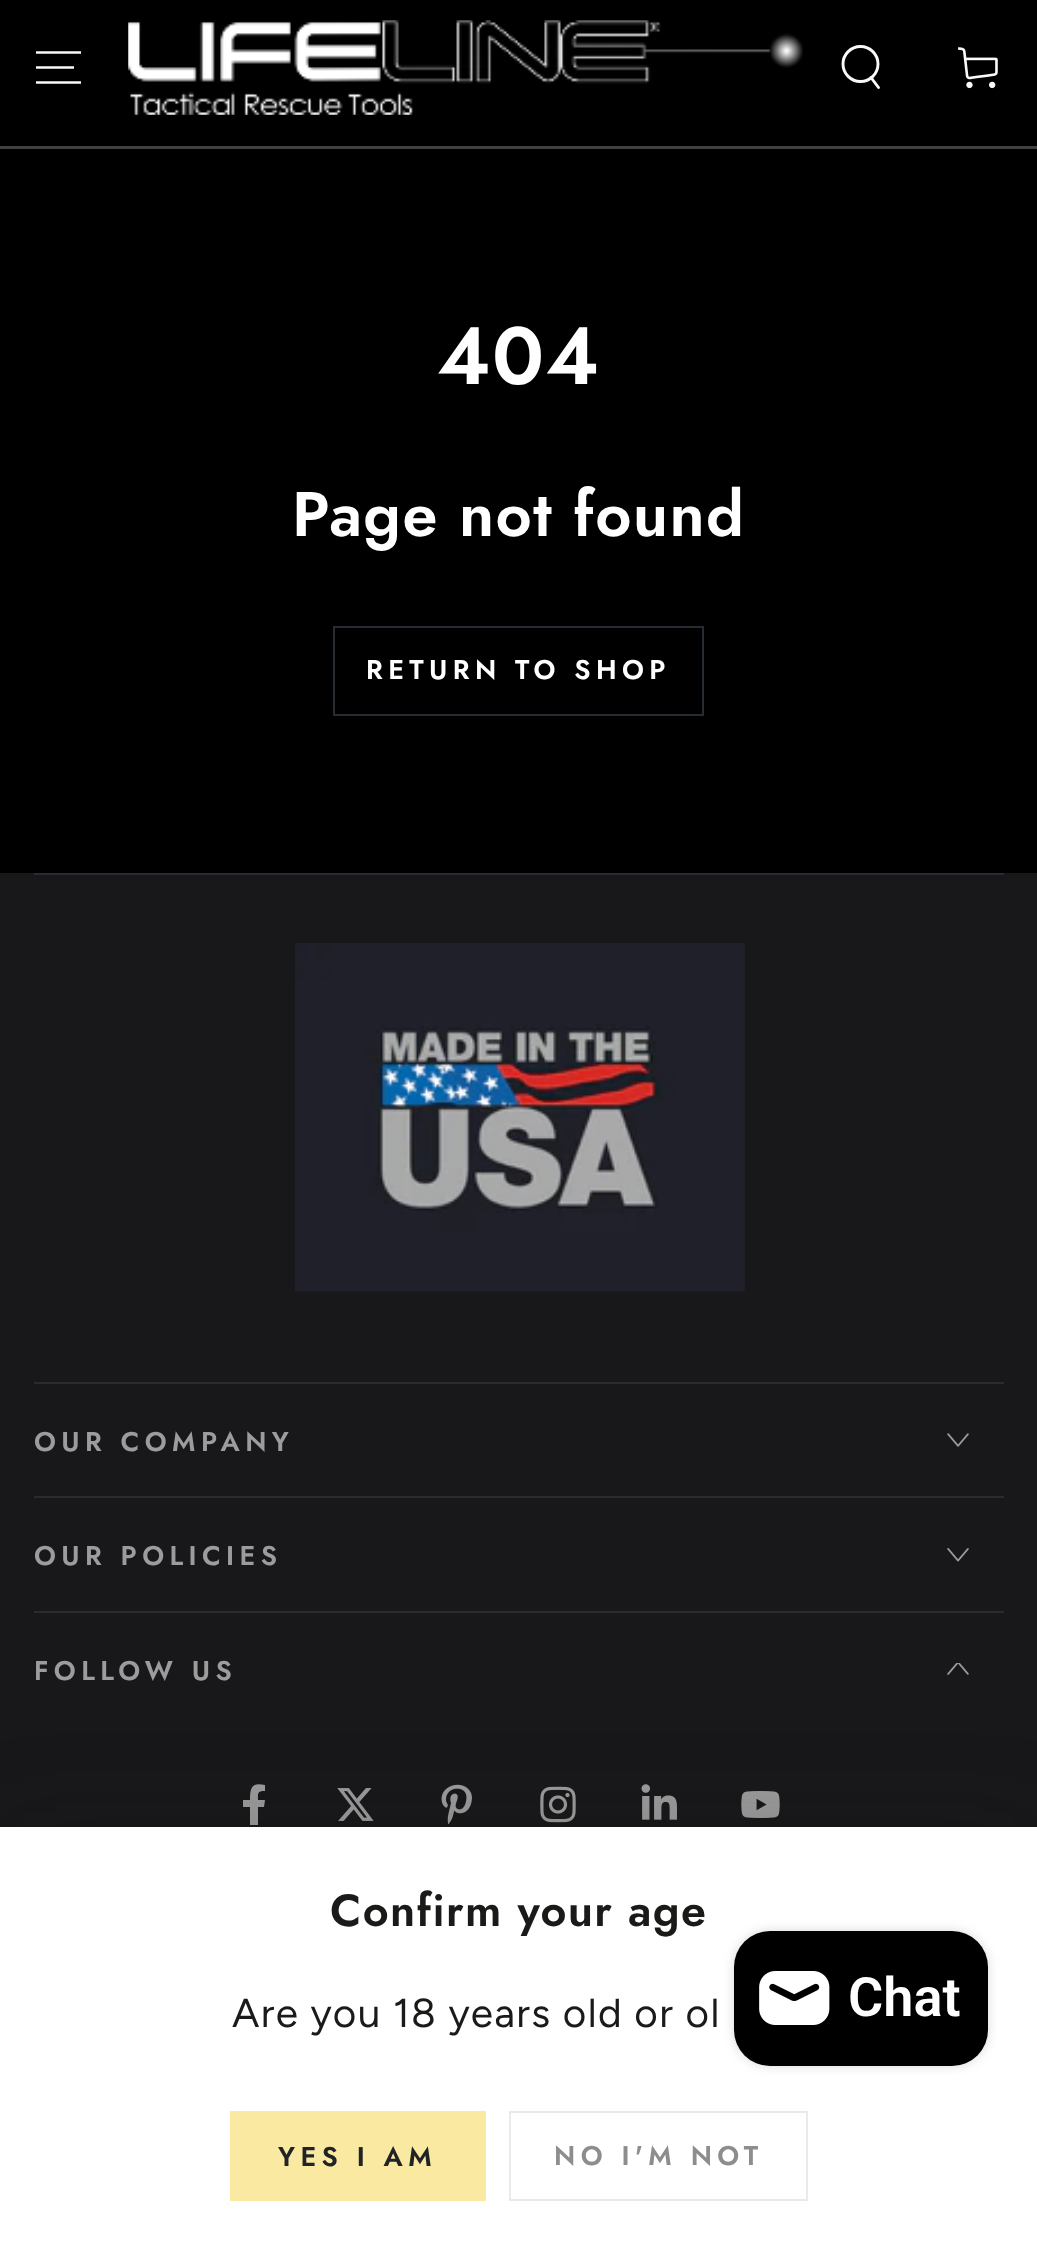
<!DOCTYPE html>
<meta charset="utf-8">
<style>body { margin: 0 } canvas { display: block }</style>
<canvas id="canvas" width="1037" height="2256"></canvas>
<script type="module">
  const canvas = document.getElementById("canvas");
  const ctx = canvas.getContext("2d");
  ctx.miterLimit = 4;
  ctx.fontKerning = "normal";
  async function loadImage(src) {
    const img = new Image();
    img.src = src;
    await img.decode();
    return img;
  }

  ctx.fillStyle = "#000000";
  ctx.fillRect(0, 0, 1037, 2256);
  ctx.fillStyle = "#3f4041";
  ctx.fillRect(0, 146, 1037, 3);
  ctx.beginPath();
  ctx.moveTo(36, 82.5);
  ctx.lineTo(81, 82.5);
  ctx.moveTo(36, 67.5);
  ctx.lineTo(74, 67.5);
  ctx.moveTo(36, 52.5);
  ctx.lineTo(81, 52.5);
  ctx.strokeStyle = "#fafafa";
  ctx.lineWidth = 2.5;
  ctx.stroke();
  ctx.drawImage(await loadImage("img1.png"), 128, 20, 675, 95);
  ctx.beginPath();
  ctx.arc(860.5, 64, 17.5, 0, Math.PI * 2);
  ctx.lineWidth = 2.9;
  ctx.stroke();
  ctx.beginPath();
  ctx.moveTo(871, 77.5);
  ctx.lineTo(878.5, 87.5);
  ctx.lineCap = "round";
  ctx.stroke();
  ctx.drawImage(await loadImage("img2.png"), 958, 47, 40, 42);
  ctx.letterSpacing = "1.35px";
  ctx.font = "600 81px Jost";
  ctx.fillStyle = "#ffffff";
  ctx.fillText("404", 437, 384);
  ctx.font = "600 63px Jost";
  ctx.fillText("Page not found", 292, 536);
  ctx.strokeStyle = "#272c32";
  ctx.lineWidth = 2;
  ctx.strokeRect(334, 627, 369, 88);
  ctx.letterSpacing = "5.4px";
  ctx.font = "600 27px Jost";
  ctx.fillText("RETURN TO SHOP", 366, 679);
  ctx.fillStyle = "#18181a";
  ctx.fillRect(0, 873, 1037, 954);
  ctx.fillStyle = "#272c32";
  ctx.fillRect(34, 873, 970, 2);
  ctx.fillRect(34, 1382, 970, 2);
  ctx.drawImage(await loadImage("img3.png"), 295, 943, 450, 349);
  ctx.fillRect(34, 1496, 970, 2);
  ctx.fillStyle = "#9c9c9c";
  ctx.fillText("OUR COMPANY", 34, 1451);
  ctx.drawImage(await loadImage("img4.png"), 947, 1433, 22, 14);
  ctx.fillStyle = "#272c32";
  ctx.fillRect(34, 1611, 970, 2);
  ctx.fillStyle = "#9c9c9c";
  ctx.fillText("OUR POLICIES", 34, 1565);
  ctx.drawImage(await loadImage("img5.png"), 947, 1548, 22, 14);
  ctx.fillText("FOLLOW US", 34, 1680);
  ctx.drawImage(await loadImage("img6.png"), 947, 1663, 22, 12);
  ctx.beginPath();
  ctx.moveTo(264, 1807);
  ctx.lineTo(265, 1800);
  ctx.lineTo(258, 1800);
  ctx.bezierCurveTo(258, 1793, 257, 1791, 265, 1791);
  ctx.lineTo(265, 1785);
  ctx.bezierCurveTo(252, 1782, 250, 1787, 250, 1800);
  ctx.lineTo(243, 1800);
  ctx.lineTo(243, 1807);
  ctx.lineTo(250, 1807);
  ctx.lineTo(250, 1825);
  ctx.lineTo(258, 1825);
  ctx.lineTo(258, 1807);
  ctx.closePath();
  ctx.fill();
  ctx.drawImage(await loadImage("img7.png"), 337, 1788, 37, 33);
  ctx.drawImage(await loadImage("img8.png"), 441, 1784, 31, 41);
  ctx.drawImage(await loadImage("img9.png"), 540, 1786, 36, 37);
  ctx.drawImage(await loadImage("img10.png"), 641, 1784, 36, 36);
  ctx.drawImage(await loadImage("img11.png"), 741, 1791, 39, 27);
  ctx.fillStyle = "rgba(26, 27, 24, 0.2)";
  ctx.filter = "blur(45px)";
  ctx.beginPath();
  ctx.rect(0, 1827, 1037, 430);
  ctx.fill();
  ctx.filter = "none";
  ctx.fillStyle = "#ffffff";
  ctx.fillRect(0, 1827, 1037, 429);
  ctx.letterSpacing = "1.35px";
  ctx.font = "600 45px Jost";
  ctx.fillStyle = "#1a1b18";
  ctx.fillText("Confirm your age", 330, 1926);
  ctx.font = "40.5px Figtree";
  ctx.fillText("Are you 18 years old or ol", 232, 2027);
  ctx.fillStyle = "#faeaa1";
  ctx.fillRect(230, 2111, 256, 90);
  ctx.letterSpacing = "5.4px";
  ctx.font = "600 27px Jost";
  ctx.fillStyle = "#212326";
  ctx.fillText("YES I AM", 278, 2166);
  ctx.strokeStyle = "#e9eaec";
  ctx.strokeRect(510, 2112, 297, 88);
  ctx.fillStyle = "#8d8d8c";
  ctx.fillText("NO I'M NOT", 554, 2165);
  ctx.fillStyle = "rgba(0, 0, 0, 0.15)";
  ctx.filter = "blur(5.5px)";
  ctx.beginPath();
  ctx.roundRect(734, 1931, 254, 135, 36);
  ctx.fill();
  ctx.filter = "none";
  ctx.fillStyle = "#000000";
  ctx.beginPath();
  ctx.roundRect(734, 1931, 254, 135, 36);
  ctx.fill();
  ctx.drawImage(await loadImage("img12.png"), 759, 1971, 71, 54);
  ctx.letterSpacing = "0px";
  ctx.font = "600 54px Roboto";
  ctx.fillStyle = "#ffffff";
  ctx.fillText("Chat", 848, 2016);
</script>
